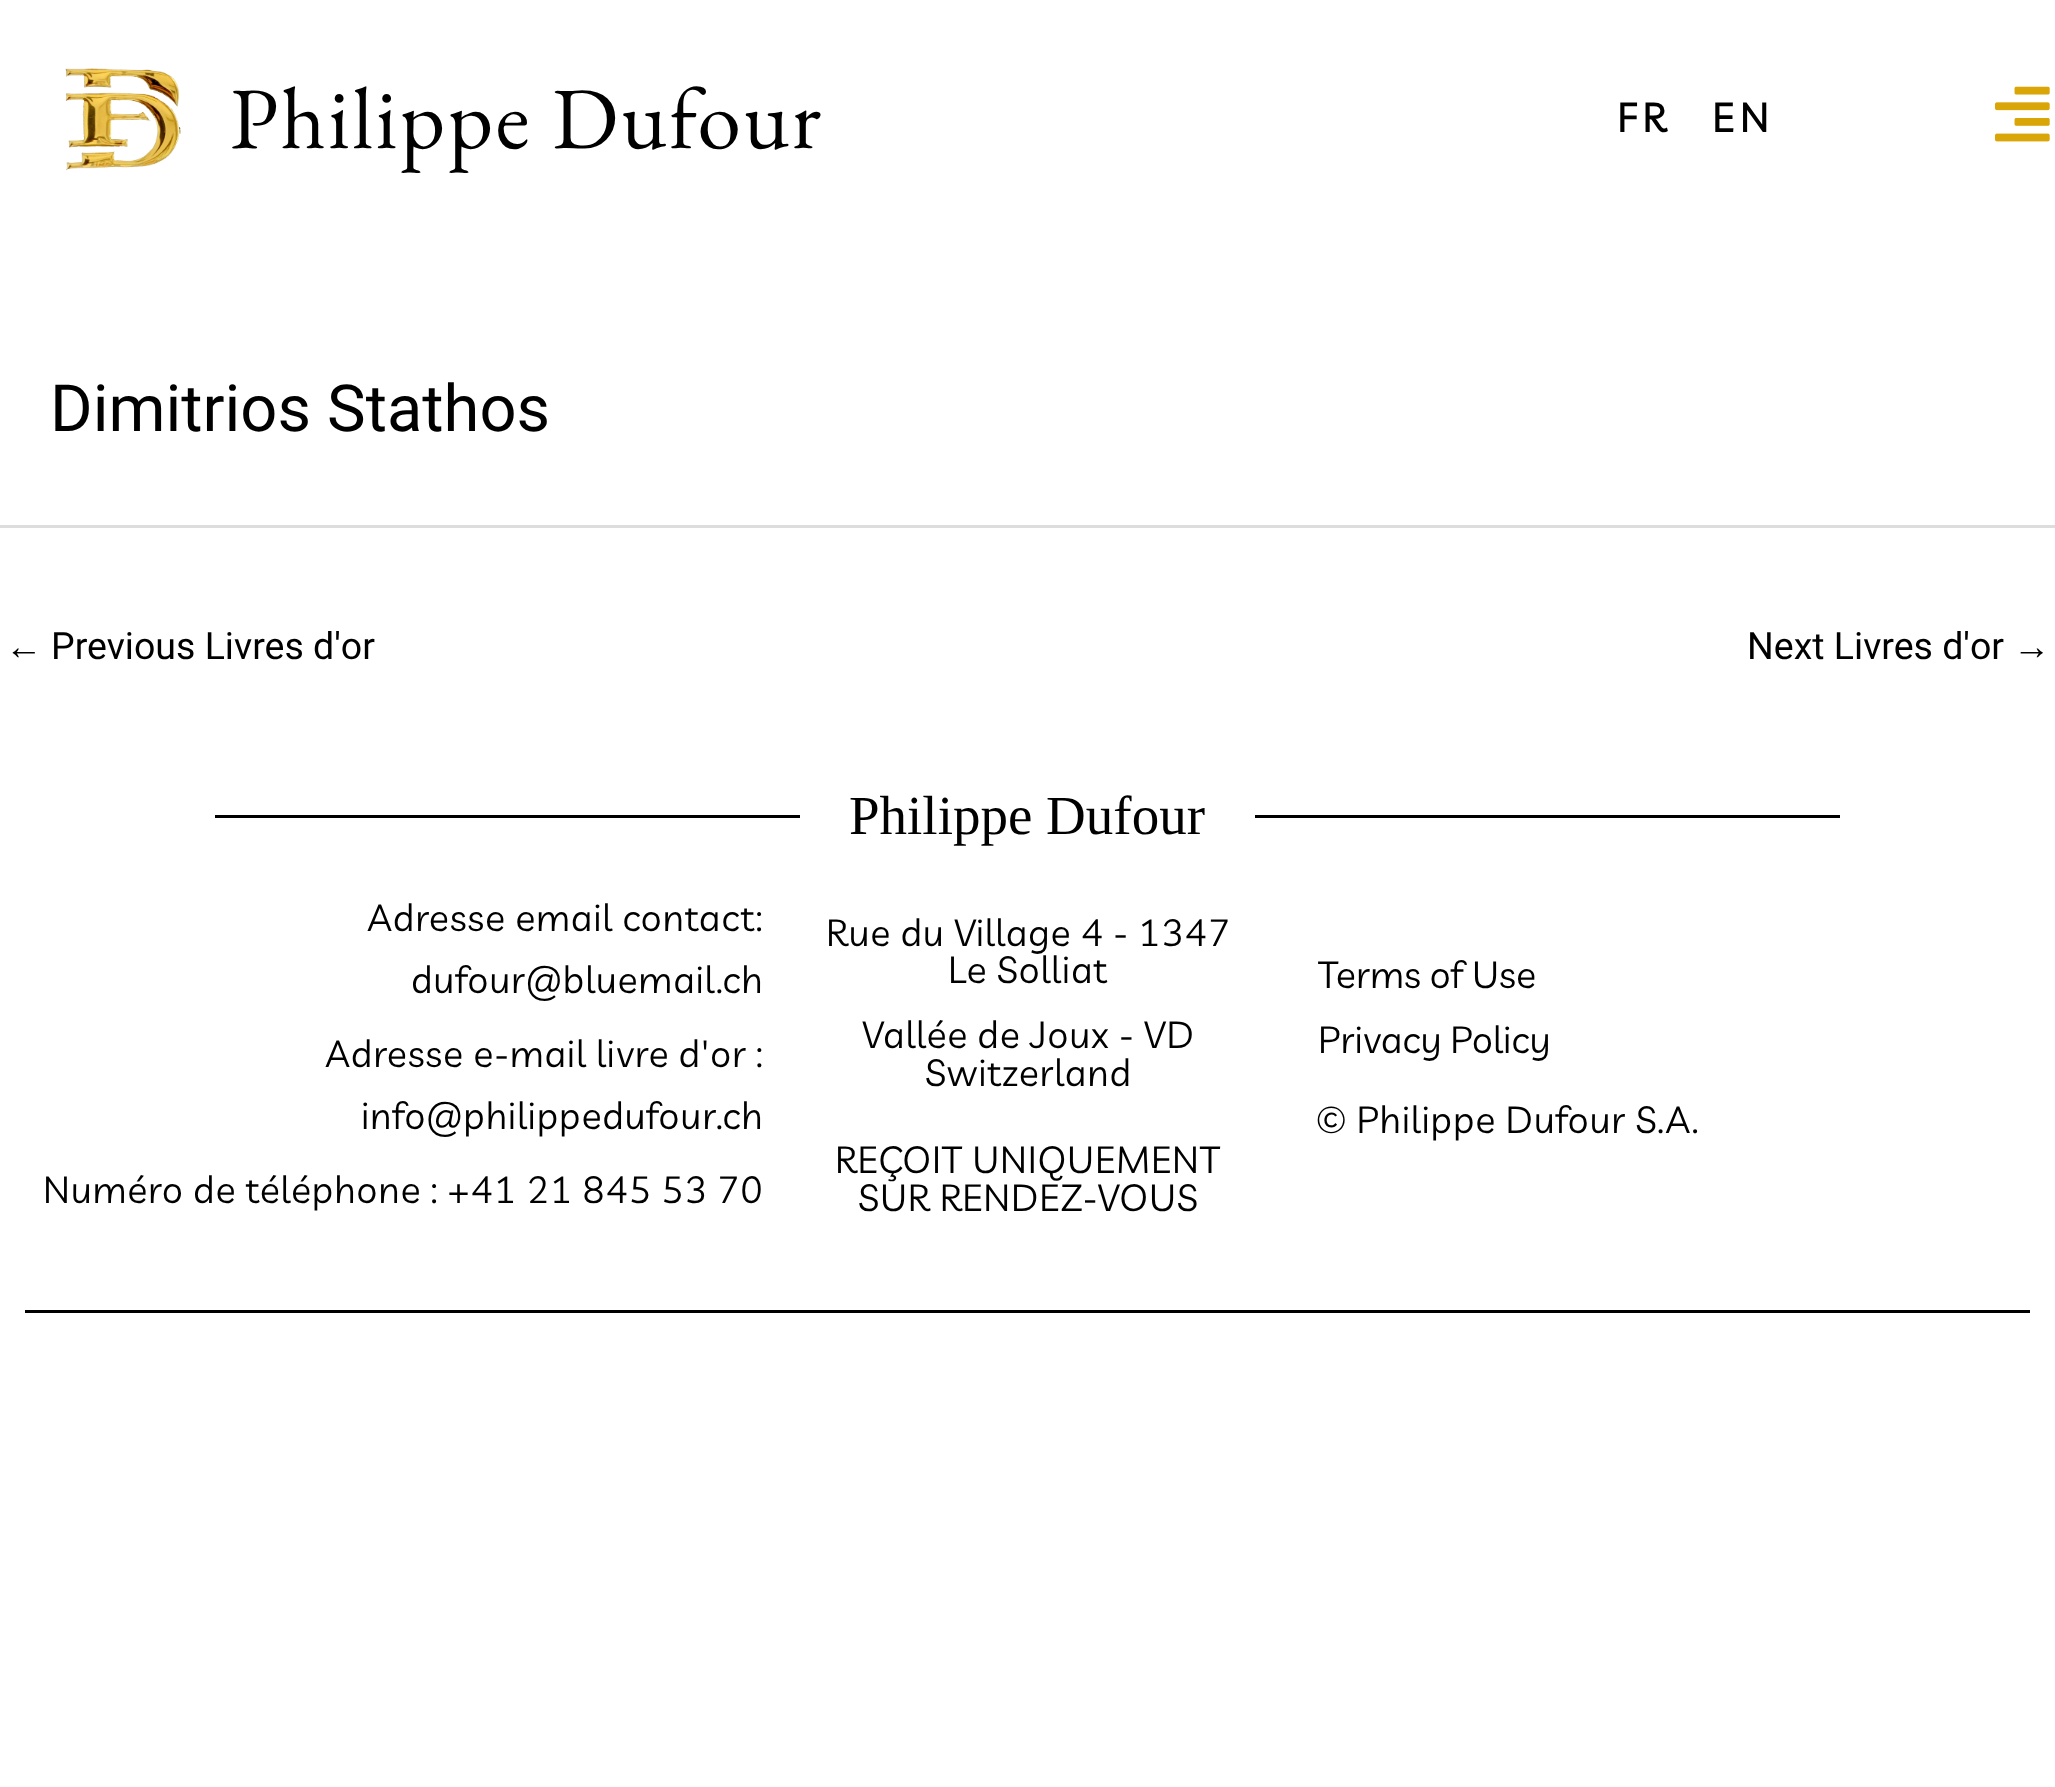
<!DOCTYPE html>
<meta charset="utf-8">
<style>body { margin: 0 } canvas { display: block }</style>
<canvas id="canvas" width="2055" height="1787"></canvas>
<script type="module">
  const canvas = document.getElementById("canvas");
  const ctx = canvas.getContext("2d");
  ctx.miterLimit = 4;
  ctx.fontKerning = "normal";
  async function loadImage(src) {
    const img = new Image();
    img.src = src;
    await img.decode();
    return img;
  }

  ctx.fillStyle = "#ffffff";
  ctx.fillRect(0, 0, 2055, 1787);
  ctx.drawImage(await loadImage("img1.png"), 65, 68, 116, 103);
  ctx.letterSpacing = "2.5px";
  ctx.font = "87.5px EB Garamond";
  ctx.fillStyle = "#000000";
  ctx.fillText("Philippe Dufour", 230, 148);
  ctx.letterSpacing = "6px";
  ctx.font = "bold 40px Livvic";
  ctx.fillText("FR", 1617, 132);
  ctx.fillText("EN", 1712, 132);
  ctx.drawImage(await loadImage("img2.png"), 1995, 86, 55, 56);
  ctx.letterSpacing = "0px";
  ctx.font = "65px Roboto";
  ctx.fillText("Dimitrios Stathos", 50, 431);
  ctx.fillStyle = "#dddddd";
  ctx.fillRect(0, 525, 2055, 3);
  ctx.font = "37.5px Liberation Sans";
  ctx.fillStyle = "#000000";
  ctx.fillText("←", 5, 659);
  ctx.font = "37.5px Roboto";
  ctx.fillText("Previous Livres d'or", 51, 659);
  ctx.fillText("Next Livres d'or", 1747, 659);
  ctx.font = "37.5px Liberation Sans";
  ctx.fillText("→", 2013, 659);
  ctx.fillRect(215, 815, 585, 3);
  ctx.font = "55px Liberation Serif";
  ctx.fillText("Philippe Dufour", 849, 834);
  ctx.fillRect(1255, 815, 585, 3);
  ctx.letterSpacing = "0.75px";
  ctx.font = "37.5px Livvic";
  ctx.fillText("Adresse email contact:", 367, 931);
  ctx.fillText("dufour@bluemail.ch", 411, 993);
  ctx.fillText("Adresse e-mail livre d'or :", 325, 1067);
  ctx.fillText("info@philippedufour.ch", 361, 1129);
  ctx.fillText("Numéro de téléphone : +41 21 845 53 70", 43, 1203);
  ctx.fillText("Rue du Village 4 - 1347", 826, 946);
  ctx.fillText("Le Solliat", 948, 983);
  ctx.fillText("Vallée de Joux - VD", 862, 1048);
  ctx.fillText("Switzerland", 925, 1086);
  ctx.fillText("REÇOIT UNIQUEMENT", 835, 1173);
  ctx.fillText("SUR RENDEZ-VOUS", 858, 1211);
  ctx.letterSpacing = "0px";
  ctx.fillText("Terms of Use", 1318, 988);
  ctx.fillText("Privacy Policy", 1318, 1053);
  ctx.letterSpacing = "0.75px";
  ctx.font = "37.5px 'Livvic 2'";
  ctx.fillText("© Philippe Dufour S.A.", 1316, 1133);
  ctx.fillRect(25, 1310, 2005, 3);
</script>
